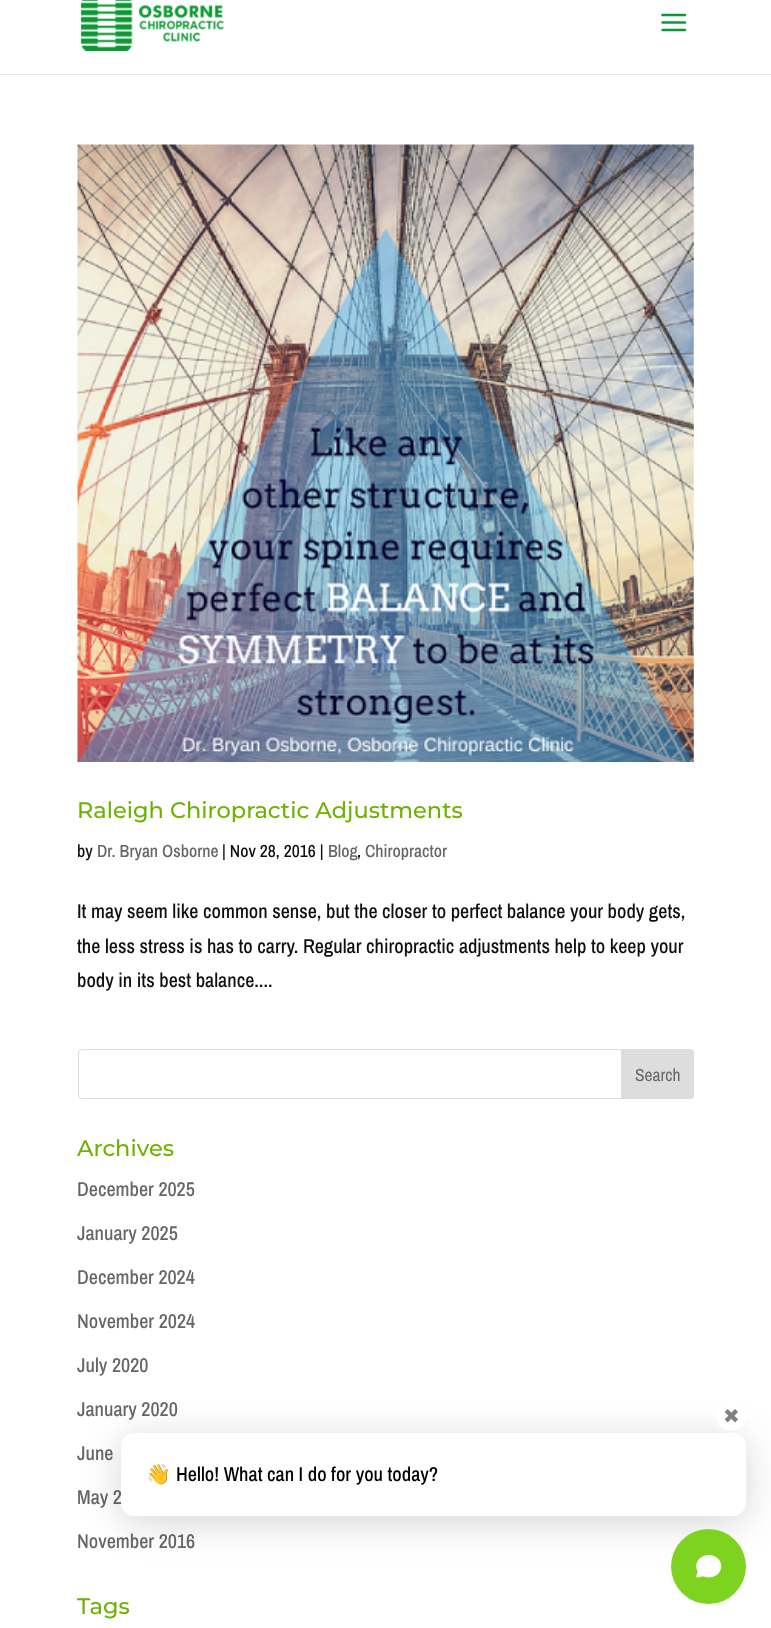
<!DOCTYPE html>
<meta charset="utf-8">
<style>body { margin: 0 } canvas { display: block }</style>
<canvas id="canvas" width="771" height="1628"></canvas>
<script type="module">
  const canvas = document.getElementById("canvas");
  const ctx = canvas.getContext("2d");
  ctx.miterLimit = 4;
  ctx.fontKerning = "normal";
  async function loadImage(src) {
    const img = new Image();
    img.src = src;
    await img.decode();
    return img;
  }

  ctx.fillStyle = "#ffffff";
  ctx.fillRect(0, 0, 771, 1628);
  ctx.fillStyle = "#e6e6e6";
  ctx.fillRect(0, 74, 771, 1);
  ctx.drawImage(await loadImage("img1.png"), 81, 0, 143, 51);
  ctx.drawImage(await loadImage("img2.png"), 661, 13, 26, 19);
  ctx.drawImage(await loadImage("img3.png"), 77, 144, 617, 618);
  ctx.font = "500 22.5px Montserrat";
  ctx.fillStyle = "#6eb200";
  ctx.fillText("Raleigh Chiropractic Adjustments", 77, 818);
  ctx.font = "500 17.5px Archivo Narrow";
  ctx.fillStyle = "#0f0f0f";
  ctx.fillText("by", 77, 857);
  ctx.fillStyle = "#666666";
  ctx.fillText("Dr. Bryan Osborne", 97, 857);
  ctx.fillStyle = "#0f0f0f";
  ctx.fillText("| Nov 28, 2016 |", 222, 857);
  ctx.fillStyle = "#666666";
  ctx.fillText("Blog", 328, 857);
  ctx.fillStyle = "#0f0f0f";
  ctx.fillText(",", 357, 857);
  ctx.fillStyle = "#666666";
  ctx.fillText("Chiropractor", 365, 857);
  ctx.font = "500 20px Archivo Narrow";
  ctx.fillStyle = "#0f0f0f";
  ctx.fillText("It may seem like common sense, but the closer to perfect balance your body gets,", 77, 918);
  ctx.fillText("the less stress is has to carry. Regular chiropractic adjustments help to keep your", 77, 953);
  ctx.fillText("body in its best balance....", 77, 987);
  ctx.beginPath();
  ctx.roundRect(78.5, 1049.5, 615, 49, 3.5);
  ctx.strokeStyle = "#dddddd";
  ctx.stroke();
  ctx.fillStyle = "#dddddd";
  ctx.beginPath();
  ctx.roundRect(621.5, 1049.5, 72, 49, [0, 3.5, 3.5, 0]);
  ctx.fill();
  ctx.stroke();
  ctx.font = "17.5px Archivo Narrow";
  ctx.fillStyle = "#666666";
  ctx.fillText("Search", 635, 1081);
  ctx.font = "500 22.5px Montserrat";
  ctx.fillStyle = "#6eb200";
  ctx.fillText("Archives", 77, 1156);
  ctx.font = "500 20px Archivo Narrow";
  ctx.fillStyle = "#666666";
  ctx.fillText("December 2025", 77, 1196);
  ctx.fillText("January 2025", 77, 1240);
  ctx.fillText("December 2024", 77, 1284);
  ctx.fillText("November 2024", 77, 1328);
  ctx.fillText("July 2020", 77, 1372);
  ctx.fillText("January 2020", 77, 1416);
  ctx.fillText("June", 77, 1460);
  ctx.fillText("May 2", 77, 1504);
  ctx.fillText("November 2016", 77, 1548);
  ctx.font = "500 22.5px Montserrat";
  ctx.fillStyle = "#6eb200";
  ctx.fillText("Tags", 77, 1614);
  ctx.fillStyle = "rgba(0, 0, 0, 0.16)";
  ctx.filter = "blur(19px)";
  ctx.beginPath();
  ctx.roundRect(121, 1439, 625, 84, 13);
  ctx.fill();
  ctx.filter = "none";
  ctx.fillStyle = "#ffffff";
  ctx.beginPath();
  ctx.roundRect(121, 1433, 625, 83, 13);
  ctx.fill();
  ctx.beginPath();
  ctx.arc(731, 1416, 15, 0, Math.PI * 2);
  ctx.fill();
  ctx.font = "20px DejaVu Sans";
  ctx.fillStyle = "#808080";
  ctx.fillText("✖", 723, 1423);
  ctx.font = "20px Noto Color Emoji";
  ctx.fillStyle = "#000000";
  ctx.fillText("👋", 146, 1481);
  ctx.font = "500 20px Archivo Narrow";
  ctx.fillText("Hello! What can I do for you today?", 176, 1481);
  ctx.fillStyle = "#7ed321";
  ctx.beginPath();
  ctx.arc(708.5, 1566.5, 37.5, 0, Math.PI * 2);
  ctx.fill();
  ctx.drawImage(await loadImage("img4.png"), 696, 1555, 26, 23);
</script>
